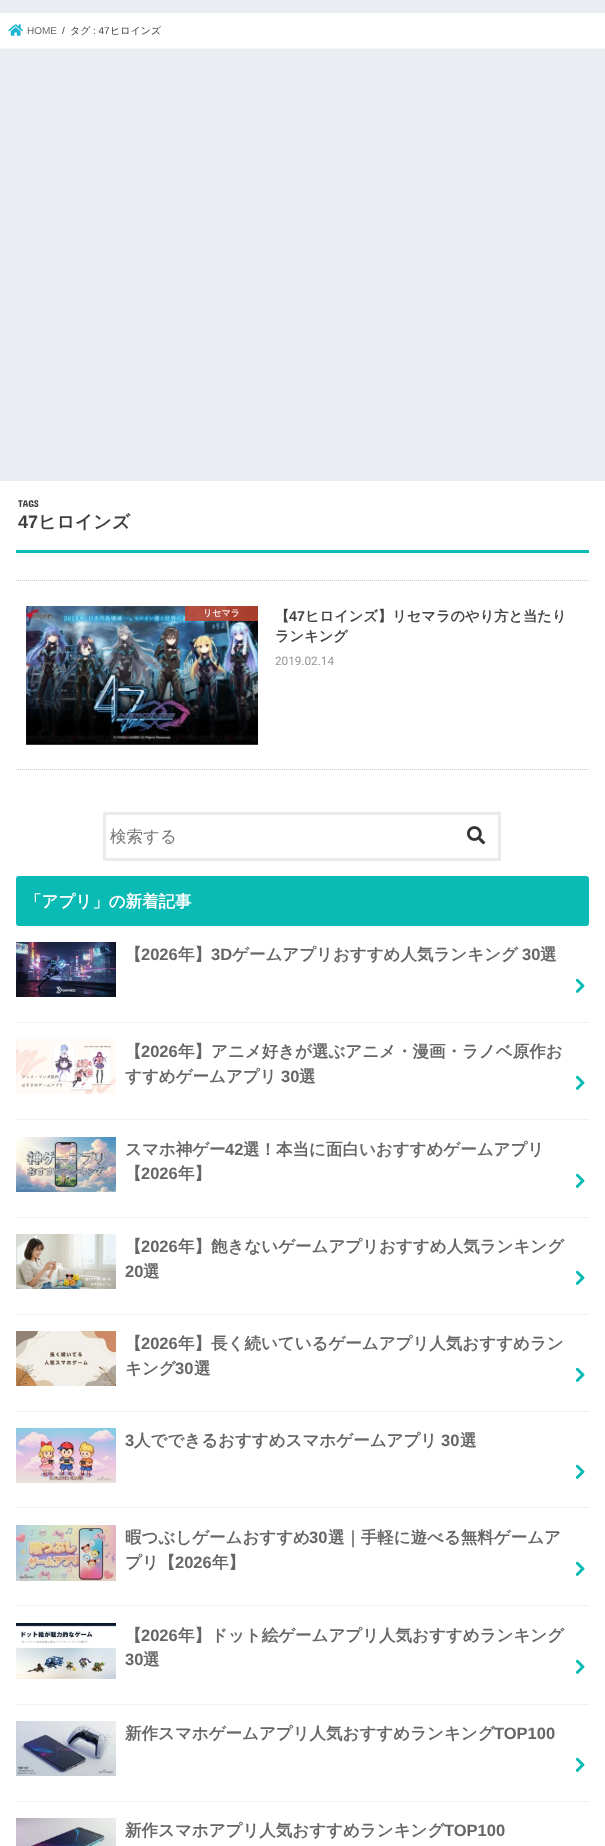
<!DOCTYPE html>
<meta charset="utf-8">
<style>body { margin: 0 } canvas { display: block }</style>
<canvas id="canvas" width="605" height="1846"></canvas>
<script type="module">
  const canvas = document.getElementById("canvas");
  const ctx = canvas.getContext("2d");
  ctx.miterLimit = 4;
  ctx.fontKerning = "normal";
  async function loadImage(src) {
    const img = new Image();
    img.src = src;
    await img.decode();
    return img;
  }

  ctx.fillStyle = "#eaedf2";
  ctx.fillRect(0, 0, 605, 1846);
  ctx.fillStyle = "#dddddd";
  ctx.filter = "blur(0.5px)";
  ctx.beginPath();
  ctx.rect(0, 13, 605, 36);
  ctx.fill();
  ctx.filter = "none";
  ctx.fillStyle = "#ffffff";
  ctx.fillRect(0, 13, 605, 35);
  ctx.fillStyle = "#f7f7f7";
  ctx.fillRect(0, 48, 605, 1);
  ctx.drawImage(await loadImage("img1.png"), 8, 24, 15, 12);
  ctx.font = "10px Liberation Sans";
  ctx.fillStyle = "#666666";
  ctx.fillText("HOME", 27, 34);
  ctx.fillStyle = "#3e3e3e";
  ctx.fillText("/", 62, 34);
  ctx.font = "500 10px WenQuanYi Zen Hei";
  ctx.fillText("タグ", 70, 34);
  ctx.font = "10px Liberation Sans";
  ctx.fillText(": 47", 93, 34);
  ctx.font = "500 10px WenQuanYi Zen Hei";
  ctx.fillText("ヒロインズ", 110, 34);
  ctx.fillStyle = "#dddddd";
  ctx.filter = "blur(0.5px)";
  ctx.beginPath();
  ctx.rect(0, 481, 605, 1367);
  ctx.fill();
  ctx.filter = "none";
  ctx.fillStyle = "#ffffff";
  ctx.fillRect(0, 481, 605, 1365);
  ctx.fillStyle = "#0abab5";
  ctx.fillRect(16, 550, 573, 3);
  ctx.font = "10px Concert One";
  ctx.fillStyle = "#3e3e3e";
  ctx.fillText("TAGS", 18, 507);
  ctx.font = "bold 18px Liberation Sans";
  ctx.fillText("47", 18, 528);
  ctx.font = "bold 18px WenQuanYi Zen Hei";
  ctx.fillText("ヒロインズ", 38, 528);
  ctx.beginPath();
  ctx.moveTo(16, 580.5);
  ctx.lineTo(589, 580.5);
  ctx.strokeStyle = "#cccccc";
  ctx.setLineDash([1, 1]);
  ctx.stroke();
  ctx.beginPath();
  ctx.moveTo(16, 769.5);
  ctx.lineTo(589, 769.5);
  ctx.stroke();
  ctx.drawImage(await loadImage("img2.png"), 26, 606, 232, 139);
  ctx.fillStyle = "rgba(187, 68, 48, 0.9)";
  ctx.fillRect(185, 606, 73, 15);
  ctx.font = "bold 9px WenQuanYi Zen Hei";
  ctx.fillStyle = "#f7edeb";
  ctx.fillText("リセマラ", 203, 616);
  ctx.font = "bold 14.25px WenQuanYi Zen Hei";
  ctx.fillStyle = "#444444";
  ctx.fillText("【", 275, 621);
  ctx.font = "bold 14.25px Liberation Sans";
  ctx.fillText("47", 289, 621);
  ctx.font = "bold 14.25px WenQuanYi Zen Hei";
  ctx.fillText("ヒロインズ】リセマラのやり方と当たり", 305, 621);
  ctx.fillText("ランキング", 275, 641);
  ctx.font = "11.75px Roboto";
  ctx.fillStyle = "#949494";
  ctx.fillText("2019.02.14", 275, 665);
  ctx.beginPath();
  ctx.moveTo(104.5, 813.5);
  ctx.lineTo(499.5, 813.5);
  ctx.lineTo(499.5, 859.5);
  ctx.lineTo(104.5, 859.5);
  ctx.closePath();
  ctx.strokeStyle = "#ebebeb";
  ctx.lineWidth = 3;
  ctx.setLineDash([]);
  ctx.stroke();
  ctx.font = "500 16.5px WenQuanYi Zen Hei";
  ctx.fillStyle = "#757575";
  ctx.fillText("検索する", 110, 842);
  ctx.drawImage(await loadImage("img3.png"), 467, 826, 19, 19);
  ctx.fillStyle = "#0abab5";
  ctx.beginPath();
  ctx.roundRect(16, 876, 573, 50, 3);
  ctx.fill();
  ctx.font = "bold 16.5px WenQuanYi Zen Hei";
  ctx.fillStyle = "#ffffff";
  ctx.fillText("「アプリ」の新着記事", 25, 907);
  ctx.beginPath();
  ctx.moveTo(16, 1022.5);
  ctx.lineTo(589, 1022.5);
  ctx.strokeStyle = "#e5e5e5";
  ctx.lineWidth = 1;
  ctx.setLineDash([1, 1]);
  ctx.stroke();
  ctx.drawImage(await loadImage("img4.png"), 16, 942, 100, 55);
  ctx.drawImage(await loadImage("img5.png"), 575, 978, 10, 15);
  ctx.fillStyle = "#666666";
  ctx.fillText("【", 125, 960);
  ctx.font = "bold 16.5px Liberation Sans";
  ctx.fillText("2026", 141, 960);
  ctx.font = "bold 16.5px WenQuanYi Zen Hei";
  ctx.fillText("年】", 178, 960);
  ctx.font = "bold 16.5px Liberation Sans";
  ctx.fillText("3D", 211, 960);
  ctx.font = "bold 16.5px WenQuanYi Zen Hei";
  ctx.fillText("ゲームアプリおすすめ人気ランキング", 232, 960);
  ctx.font = "bold 16.5px Liberation Sans";
  ctx.fillText("30", 522, 960);
  ctx.font = "bold 16.5px WenQuanYi Zen Hei";
  ctx.fillText("選", 540, 960);
  ctx.drawImage(await loadImage("img6.png"), 575, 978, 10, 15);
  ctx.beginPath();
  ctx.moveTo(16, 1119.5);
  ctx.lineTo(589, 1119.5);
  ctx.stroke();
  ctx.drawImage(await loadImage("img7.png"), 16, 1039, 100, 55);
  ctx.drawImage(await loadImage("img5.png"), 575, 1075, 10, 15);
  ctx.fillText("【", 125, 1057);
  ctx.font = "bold 16.5px Liberation Sans";
  ctx.fillText("2026", 141, 1057);
  ctx.font = "bold 16.5px WenQuanYi Zen Hei";
  ctx.fillText("年】アニメ好きが選ぶアニメ・漫画・ラノベ原作お", 178, 1057);
  ctx.fillText("すすめゲームアプリ", 125, 1082);
  ctx.font = "bold 16.5px Liberation Sans";
  ctx.fillText("30", 281, 1082);
  ctx.font = "bold 16.5px WenQuanYi Zen Hei";
  ctx.fillText("選", 299, 1082);
  ctx.drawImage(await loadImage("img6.png"), 575, 1075, 10, 15);
  ctx.beginPath();
  ctx.moveTo(16, 1217.5);
  ctx.lineTo(589, 1217.5);
  ctx.stroke();
  ctx.drawImage(await loadImage("img8.png"), 16, 1137, 100, 55);
  ctx.drawImage(await loadImage("img5.png"), 575, 1173, 10, 15);
  ctx.fillText("スマホ神ゲー", 125, 1155);
  ctx.font = "bold 16.5px Liberation Sans";
  ctx.fillText("42", 225, 1155);
  ctx.font = "bold 16.5px WenQuanYi Zen Hei";
  ctx.fillText("選！本当に面白いおすすめゲームアプリ", 243, 1155);
  ctx.fillText("【", 125, 1179);
  ctx.font = "bold 16.5px Liberation Sans";
  ctx.fillText("2026", 141, 1179);
  ctx.font = "bold 16.5px WenQuanYi Zen Hei";
  ctx.fillText("年】", 178, 1179);
  ctx.drawImage(await loadImage("img6.png"), 575, 1173, 10, 15);
  ctx.beginPath();
  ctx.moveTo(16, 1314.5);
  ctx.lineTo(589, 1314.5);
  ctx.stroke();
  ctx.drawImage(await loadImage("img9.png"), 16, 1234, 100, 55);
  ctx.drawImage(await loadImage("img5.png"), 575, 1270, 10, 15);
  ctx.fillText("【", 125, 1252);
  ctx.font = "bold 16.5px Liberation Sans";
  ctx.fillText("2026", 141, 1252);
  ctx.font = "bold 16.5px WenQuanYi Zen Hei";
  ctx.fillText("年】飽きないゲームアプリおすすめ人気ランキング", 178, 1252);
  ctx.font = "bold 16.5px Liberation Sans";
  ctx.fillText("20", 125, 1277);
  ctx.font = "bold 16.5px WenQuanYi Zen Hei";
  ctx.fillText("選", 143, 1277);
  ctx.drawImage(await loadImage("img6.png"), 575, 1270, 10, 15);
  ctx.beginPath();
  ctx.moveTo(16, 1411.5);
  ctx.lineTo(589, 1411.5);
  ctx.stroke();
  ctx.drawImage(await loadImage("img10.png"), 16, 1331, 100, 55);
  ctx.drawImage(await loadImage("img5.png"), 575, 1367, 10, 15);
  ctx.fillText("【", 125, 1349);
  ctx.font = "bold 16.5px Liberation Sans";
  ctx.fillText("2026", 141, 1349);
  ctx.font = "bold 16.5px WenQuanYi Zen Hei";
  ctx.fillText("年】長く続いているゲームアプリ人気おすすめラン", 178, 1349);
  ctx.fillText("キング", 125, 1374);
  ctx.font = "bold 16.5px Liberation Sans";
  ctx.fillText("30", 175, 1374);
  ctx.font = "bold 16.5px WenQuanYi Zen Hei";
  ctx.fillText("選", 194, 1374);
  ctx.drawImage(await loadImage("img6.png"), 575, 1367, 10, 15);
  ctx.beginPath();
  ctx.moveTo(16, 1507.5);
  ctx.lineTo(589, 1507.5);
  ctx.stroke();
  ctx.drawImage(await loadImage("img11.png"), 16, 1428, 100, 55);
  ctx.drawImage(await loadImage("img5.png"), 575, 1464, 10, 15);
  ctx.font = "bold 16.5px Liberation Sans";
  ctx.fillText("3", 125, 1446);
  ctx.font = "bold 16.5px WenQuanYi Zen Hei";
  ctx.fillText("人でできるおすすめスマホゲームアプリ", 134, 1446);
  ctx.font = "bold 16.5px Liberation Sans";
  ctx.fillText("30", 441, 1446);
  ctx.font = "bold 16.5px WenQuanYi Zen Hei";
  ctx.fillText("選", 460, 1446);
  ctx.drawImage(await loadImage("img6.png"), 575, 1464, 10, 15);
  ctx.beginPath();
  ctx.moveTo(16, 1605.5);
  ctx.lineTo(589, 1605.5);
  ctx.stroke();
  ctx.drawImage(await loadImage("img12.png"), 16, 1525, 100, 56);
  ctx.drawImage(await loadImage("img5.png"), 575, 1561, 10, 15);
  ctx.fillText("暇つぶしゲームおすすめ", 125, 1543);
  ctx.font = "bold 16.5px Liberation Sans";
  ctx.fillText("30", 309, 1543);
  ctx.font = "bold 16.5px WenQuanYi Zen Hei";
  ctx.fillText("選｜手軽に遊べる無料ゲームア", 328, 1543);
  ctx.fillText("プリ【", 125, 1568);
  ctx.font = "bold 16.5px Liberation Sans";
  ctx.fillText("2026", 175, 1568);
  ctx.font = "bold 16.5px WenQuanYi Zen Hei";
  ctx.fillText("年】", 212, 1568);
  ctx.drawImage(await loadImage("img6.png"), 575, 1561, 10, 15);
  ctx.beginPath();
  ctx.moveTo(16, 1704.5);
  ctx.lineTo(589, 1704.5);
  ctx.stroke();
  ctx.drawImage(await loadImage("img13.png"), 16, 1623, 100, 56);
  ctx.drawImage(await loadImage("img5.png"), 575, 1659, 10, 15);
  ctx.fillText("【", 125, 1641);
  ctx.font = "bold 16.5px Liberation Sans";
  ctx.fillText("2026", 141, 1641);
  ctx.font = "bold 16.5px WenQuanYi Zen Hei";
  ctx.fillText("年】ドット絵ゲームアプリ人気おすすめランキング", 178, 1641);
  ctx.font = "bold 16.5px Liberation Sans";
  ctx.fillText("30", 125, 1665);
  ctx.font = "bold 16.5px WenQuanYi Zen Hei";
  ctx.fillText("選", 143, 1665);
  ctx.drawImage(await loadImage("img6.png"), 575, 1659, 10, 15);
  ctx.beginPath();
  ctx.moveTo(16, 1801.5);
  ctx.lineTo(589, 1801.5);
  ctx.stroke();
  ctx.drawImage(await loadImage("img14.png"), 16, 1721, 100, 55);
  ctx.drawImage(await loadImage("img5.png"), 575, 1757, 10, 15);
  ctx.fillText("新作スマホゲームアプリ人気おすすめランキング", 125, 1739);
  ctx.font = "bold 16.5px Liberation Sans";
  ctx.fillText("TOP100", 494, 1739);
  ctx.drawImage(await loadImage("img6.png"), 575, 1757, 10, 15);
  ctx.drawImage(await loadImage("img15.png"), 16, 1818, 100, 28);
  ctx.font = "bold 16.5px WenQuanYi Zen Hei";
  ctx.fillText("新作スマホアプリ人気おすすめランキング", 125, 1836);
  ctx.font = "bold 16.5px Liberation Sans";
  ctx.fillText("TOP100", 444, 1836);
</script>
